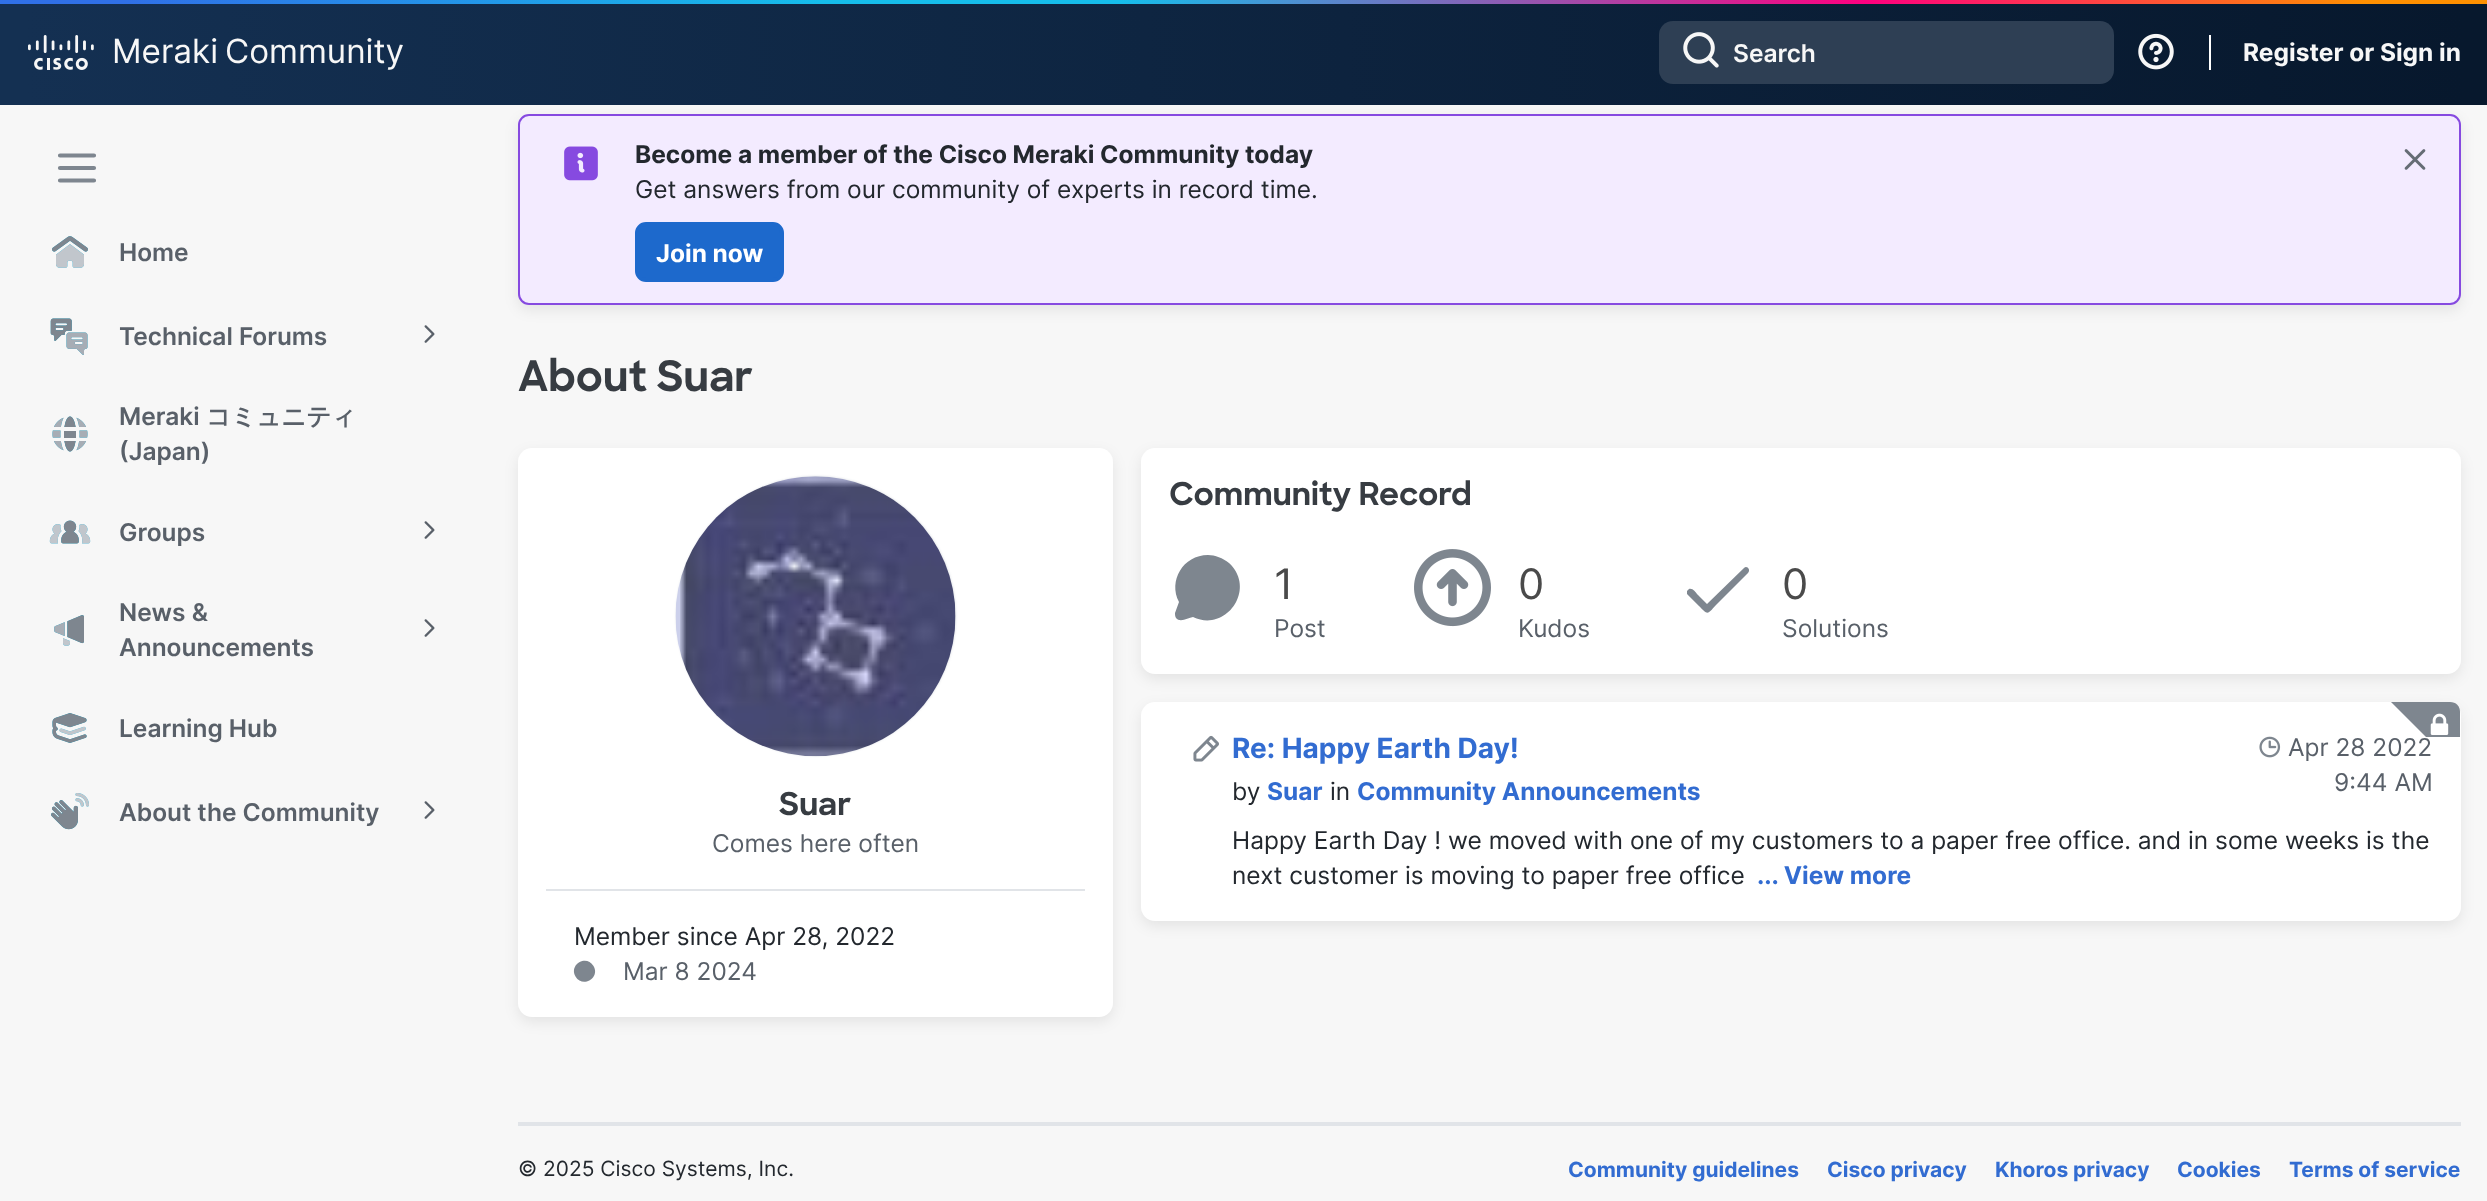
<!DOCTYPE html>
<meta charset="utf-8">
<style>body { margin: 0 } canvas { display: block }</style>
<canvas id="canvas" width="2487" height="1201"></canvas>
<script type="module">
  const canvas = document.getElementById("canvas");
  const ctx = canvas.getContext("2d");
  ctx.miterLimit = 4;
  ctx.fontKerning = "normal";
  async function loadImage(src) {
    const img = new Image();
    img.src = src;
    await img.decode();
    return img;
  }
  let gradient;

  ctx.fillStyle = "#f7f7f7";
  ctx.fillRect(0, 0, 2487, 1201);
  ctx.fillStyle = "rgba(0, 0, 0, 0.08)";
  ctx.filter = "blur(7px)";
  ctx.beginPath();
  ctx.roundRect(518, 119, 1943, 191, 11);
  ctx.fill();
  ctx.filter = "none";
  gradient = ctx.createLinearGradient(0, 53, 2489, 52);
  gradient.addColorStop(0.01, "#143052");
  gradient.addColorStop(0.99, "#07182d");
  ctx.fillStyle = gradient;
  ctx.fillRect(0, 4, 2487, 101);
  gradient = ctx.createLinearGradient(0, 1.8, 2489, 1.7);
  gradient.addColorStop(0.05, "#3070e7");
  gradient.addColorStop(0.33, "#16bdeb");
  gradient.addColorStop(0.45, "#16bdeb");
  gradient.addColorStop(0.75, "#ff007f");
  gradient.addColorStop(0.95, "#ff9000");
  ctx.fillStyle = gradient;
  ctx.fillRect(0, 0, 2487, 4);
  ctx.drawImage(await loadImage("img1.png"), 28, 35, 66, 35);
  ctx.font = "33.25px Inter";
  ctx.fillStyle = "#f7f7f7";
  ctx.fillText("Meraki", 112, 63);
  ctx.fillText("Community", 225, 63);
  ctx.fillStyle = "#2e3f54";
  ctx.beginPath();
  ctx.roundRect(1659, 21, 455, 63, 14);
  ctx.fill();
  ctx.drawImage(await loadImage("img2.png"), 1683, 32, 36, 36);
  ctx.font = "600 24.5px Inter";
  ctx.fillStyle = "#f7f7f7";
  ctx.fillText("Search", 1733, 62);
  ctx.drawImage(await loadImage("img3.png"), 2138, 33, 36, 37);
  ctx.fillStyle = "#ffffff";
  ctx.fillRect(2209, 35, 2, 35);
  ctx.font = "bold 24.5px Inter";
  ctx.fillStyle = "#f7f7f7";
  ctx.fillText("Register or Sign in", 2243, 61);
  ctx.beginPath();
  ctx.moveTo(60, 155.5);
  ctx.lineTo(94, 155.5);
  ctx.moveTo(60, 168);
  ctx.lineTo(94, 168);
  ctx.moveTo(60, 180.5);
  ctx.lineTo(94, 180.5);
  ctx.strokeStyle = "#7e868f";
  ctx.lineWidth = 4.2;
  ctx.lineCap = "round";
  ctx.stroke();
  ctx.drawImage(await loadImage("img4.png"), 52, 236, 36, 32);
  ctx.drawImage(await loadImage("img5.png"), 52, 236, 36, 32);
  ctx.font = "600 24.5px Inter";
  ctx.fillStyle = "#596069";
  ctx.fillText("Home", 119, 261);
  ctx.drawImage(await loadImage("img6.png"), 50, 318, 38, 37);
  ctx.drawImage(await loadImage("img7.png"), 50, 318, 38, 37);
  ctx.fillText("Technical Forums", 119, 345);
  ctx.drawImage(await loadImage("img8.png"), 424, 325, 11, 18);
  ctx.drawImage(await loadImage("img9.png"), 52, 416, 36, 36);
  ctx.drawImage(await loadImage("img10.png"), 52, 416, 36, 36);
  ctx.fillText("Meraki", 119, 425);
  ctx.font = "bold 24.5px WenQuanYi Zen Hei";
  ctx.fillText("コミュニティ", 206, 425);
  ctx.font = "600 24.5px Inter";
  ctx.fillText("(Japan)", 119, 460);
  ctx.drawImage(await loadImage("img11.png"), 49, 520, 42, 24);
  ctx.drawImage(await loadImage("img12.png"), 49, 520, 42, 24);
  ctx.fillText("Groups", 119, 541);
  ctx.drawImage(await loadImage("img8.png"), 424, 521, 11, 18);
  ctx.drawImage(await loadImage("img13.png"), 54, 615, 30, 31);
  ctx.drawImage(await loadImage("img14.png"), 54, 615, 30, 31);
  ctx.fillText("News &", 119, 621);
  ctx.fillText("Announcements", 119, 656);
  ctx.drawImage(await loadImage("img8.png"), 424, 619, 11, 18);
  ctx.drawImage(await loadImage("img15.png"), 52, 713, 35, 30);
  ctx.drawImage(await loadImage("img16.png"), 52, 713, 35, 30);
  ctx.fillText("Learning Hub", 119, 737);
  ctx.drawImage(await loadImage("img17.png"), 51, 793, 38, 37);
  ctx.drawImage(await loadImage("img18.png"), 51, 793, 38, 37);
  ctx.fillText("About the Community", 119, 821);
  ctx.drawImage(await loadImage("img8.png"), 424, 801, 11, 18);
  ctx.fillStyle = "#f3ebff";
  ctx.beginPath();
  ctx.roundRect(519, 115, 1941, 189, 10);
  ctx.fill();
  ctx.strokeStyle = "#864ae0";
  ctx.lineWidth = 2;
  ctx.stroke();
  ctx.drawImage(await loadImage("img19.png"), 564, 146, 34, 35);
  ctx.font = "bold 24.5px Inter";
  ctx.fillStyle = "#23282e";
  ctx.fillText("Become a member of the Cisco Meraki Community today", 635, 163);
  ctx.font = "24.5px Inter";
  ctx.fillText("Get answers from our community of experts in record time.", 635, 198);
  ctx.fillStyle = "#1d69cc";
  ctx.beginPath();
  ctx.roundRect(637, 224, 145, 56, 9);
  ctx.fill();
  ctx.strokeStyle = "#1d69cc";
  ctx.lineWidth = 4;
  ctx.stroke();
  ctx.font = "bold 24.5px Inter";
  ctx.fillStyle = "#ffffff";
  ctx.fillText("Join now", 656, 262);
  ctx.drawImage(await loadImage("img20.png"), 2404, 149, 22, 21);
  ctx.font = "bold 42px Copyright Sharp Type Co";
  ctx.fillStyle = "#373c42";
  ctx.fillText("About Suar", 518, 391);
  ctx.fillStyle = "rgba(0, 0, 0, 0.08)";
  ctx.filter = "blur(7px)";
  ctx.beginPath();
  ctx.roundRect(518, 453, 595, 569, 14);
  ctx.fill();
  ctx.filter = "none";
  ctx.fillStyle = "#ffffff";
  ctx.beginPath();
  ctx.roundRect(518, 448, 595, 569, 14);
  ctx.fill();
  ctx.fillStyle = "#e1e4e8";
  ctx.fillRect(546, 889, 539, 2);
  ctx.filter = "blur(1px)";
  ctx.beginPath();
  ctx.roundRect(676, 476, 280, 280, 140);
  ctx.fill();
  ctx.filter = "none";
  ctx.drawImage(await loadImage("img21.png"), 675, 476, 281, 281);
  ctx.font = "bold 31.5px Copyright Sharp Type Co";
  ctx.fillStyle = "#373c42";
  ctx.fillText("Suar", 779, 815);
  ctx.font = "24.5px Inter";
  ctx.fillStyle = "#596069";
  ctx.fillText("Comes here often", 712, 852);
  ctx.fillStyle = "#23282e";
  ctx.fillText("Member since Apr 28, 2022", 574, 945);
  ctx.fillStyle = "#7e868f";
  ctx.beginPath();
  ctx.moveTo(593.5, 966);
  ctx.bezierCurveTo(600.5, 978, 582.5, 988.5, 575.5, 976.5);
  ctx.bezierCurveTo(568.5, 964.5, 586.5, 954, 593.5, 966);
  ctx.closePath();
  ctx.fill();
  ctx.fillStyle = "#596069";
  ctx.fillText("Mar 8 2024", 623, 980);
  ctx.fillStyle = "rgba(0, 0, 0, 0.08)";
  ctx.filter = "blur(7px)";
  ctx.beginPath();
  ctx.roundRect(1141, 453, 1320, 226, 14);
  ctx.fill();
  ctx.filter = "none";
  ctx.fillStyle = "#ffffff";
  ctx.beginPath();
  ctx.roundRect(1141, 448, 1320, 226, 14);
  ctx.fill();
  ctx.font = "bold 31.5px Copyright Sharp Type Co";
  ctx.fillStyle = "#373c42";
  ctx.fillText("Community Record", 1169, 505);
  ctx.fillStyle = "#7e868f";
  ctx.beginPath();
  ctx.moveTo(1208, 555);
  ctx.bezierCurveTo(1183, 555, 1168, 581, 1179, 602);
  ctx.lineTo(1175, 613);
  ctx.bezierCurveTo(1175, 615, 1175, 616, 1176, 618);
  ctx.bezierCurveTo(1180, 623, 1188, 618, 1193, 617);
  ctx.bezierCurveTo(1226, 633, 1257, 589, 1229, 563);
  ctx.bezierCurveTo(1223, 558, 1215, 555, 1208, 555);
  ctx.closePath();
  ctx.fill();
  ctx.font = "42px Inter";
  ctx.fillStyle = "#4a4a4a";
  ctx.fillText("1", 1274, 599);
  ctx.font = "24.5px Inter";
  ctx.fillStyle = "#596069";
  ctx.fillText("Post", 1274, 637);
  ctx.drawImage(await loadImage("img22.png"), 1414, 549, 77, 78);
  ctx.font = "42px Inter";
  ctx.fillStyle = "#4a4a4a";
  ctx.fillText("0", 1518, 599);
  ctx.font = "24.5px Inter";
  ctx.fillStyle = "#596069";
  ctx.fillText("Kudos", 1518, 637);
  ctx.fillStyle = "#7e868f";
  ctx.beginPath();
  ctx.moveTo(1748, 573);
  ctx.lineTo(1716, 605);
  ctx.bezierCurveTo(1707, 615, 1708, 615, 1699, 606);
  ctx.lineTo(1687, 594);
  ctx.lineTo(1687, 591);
  ctx.lineTo(1689, 589);
  ctx.bezierCurveTo(1693, 588, 1695, 592, 1698, 595);
  ctx.lineTo(1707, 604);
  ctx.lineTo(1744, 568);
  ctx.bezierCurveTo(1747, 565, 1751, 570, 1748, 573);
  ctx.closePath();
  ctx.fill();
  ctx.font = "42px Inter";
  ctx.fillStyle = "#4a4a4a";
  ctx.fillText("0", 1782, 599);
  ctx.font = "24.5px Inter";
  ctx.fillStyle = "#596069";
  ctx.fillText("Solutions", 1782, 637);
  ctx.fillStyle = "rgba(0, 0, 0, 0.08)";
  ctx.filter = "blur(7px)";
  ctx.beginPath();
  ctx.roundRect(1141, 707, 1320, 219, 14);
  ctx.fill();
  ctx.filter = "none";
  ctx.fillStyle = "#ffffff";
  ctx.beginPath();
  ctx.roundRect(1141, 702, 1320, 219, 14);
  ctx.fill();
  ctx.fillStyle = "#7e868f";
  ctx.beginPath();
  ctx.moveTo(2460, 737);
  ctx.lineTo(2426, 737);
  ctx.lineTo(2391, 702);
  ctx.lineTo(2450, 702);
  ctx.bezierCurveTo(2456, 702, 2460, 706, 2460, 712);
  ctx.closePath();
  ctx.fill();
  ctx.drawImage(await loadImage("img23.png"), 2430, 713, 19, 22);
  ctx.drawImage(await loadImage("img24.png"), 1193, 735, 26, 27);
  ctx.font = "bold 28px Inter";
  ctx.fillStyle = "#326cd1";
  ctx.fillText("Re: Happy Earth Day!", 1232, 758);
  ctx.font = "24.5px Inter";
  ctx.fillStyle = "#23282e";
  ctx.fillText("by", 1232, 800);
  ctx.font = "bold 24.5px Inter";
  ctx.fillStyle = "#326cd1";
  ctx.fillText("Suar", 1267, 800);
  ctx.font = "24.5px Inter";
  ctx.fillStyle = "#23282e";
  ctx.fillText("in", 1330, 800);
  ctx.font = "bold 24.5px Inter";
  ctx.fillStyle = "#326cd1";
  ctx.fillText("Community Announcements", 1357, 800);
  ctx.drawImage(await loadImage("img25.png"), 2259, 736, 22, 22);
  ctx.font = "24.5px Inter";
  ctx.fillStyle = "#596069";
  ctx.fillText("Apr 28 2022", 2288, 756);
  ctx.fillText("9:44 AM", 2334, 791);
  ctx.fillStyle = "#23282e";
  ctx.fillText("Happy Earth Day ! we moved with one of my customers to a paper free office. and in some weeks is the", 1232, 849);
  ctx.fillText("next customer is moving to paper free office", 1232, 884);
  ctx.font = "bold 24.5px Inter";
  ctx.fillStyle = "#326cd1";
  ctx.fillText("... View more", 1757, 884);
  ctx.fillStyle = "#e1e4e8";
  ctx.fillRect(518, 1122, 1943, 4);
  ctx.font = "21px Inter";
  ctx.fillStyle = "#23282e";
  ctx.fillText("© 2025 Cisco Systems, Inc.", 518, 1176);
  ctx.font = "bold 21px Inter";
  ctx.fillStyle = "#326cd1";
  ctx.fillText("Community guidelines", 1568, 1177);
  ctx.fillText("Cisco privacy", 1827, 1177);
  ctx.fillText("Khoros privacy", 1995, 1177);
  ctx.fillText("Cookies", 2177, 1177);
  ctx.fillText("Terms of service", 2289, 1177);
</script>
